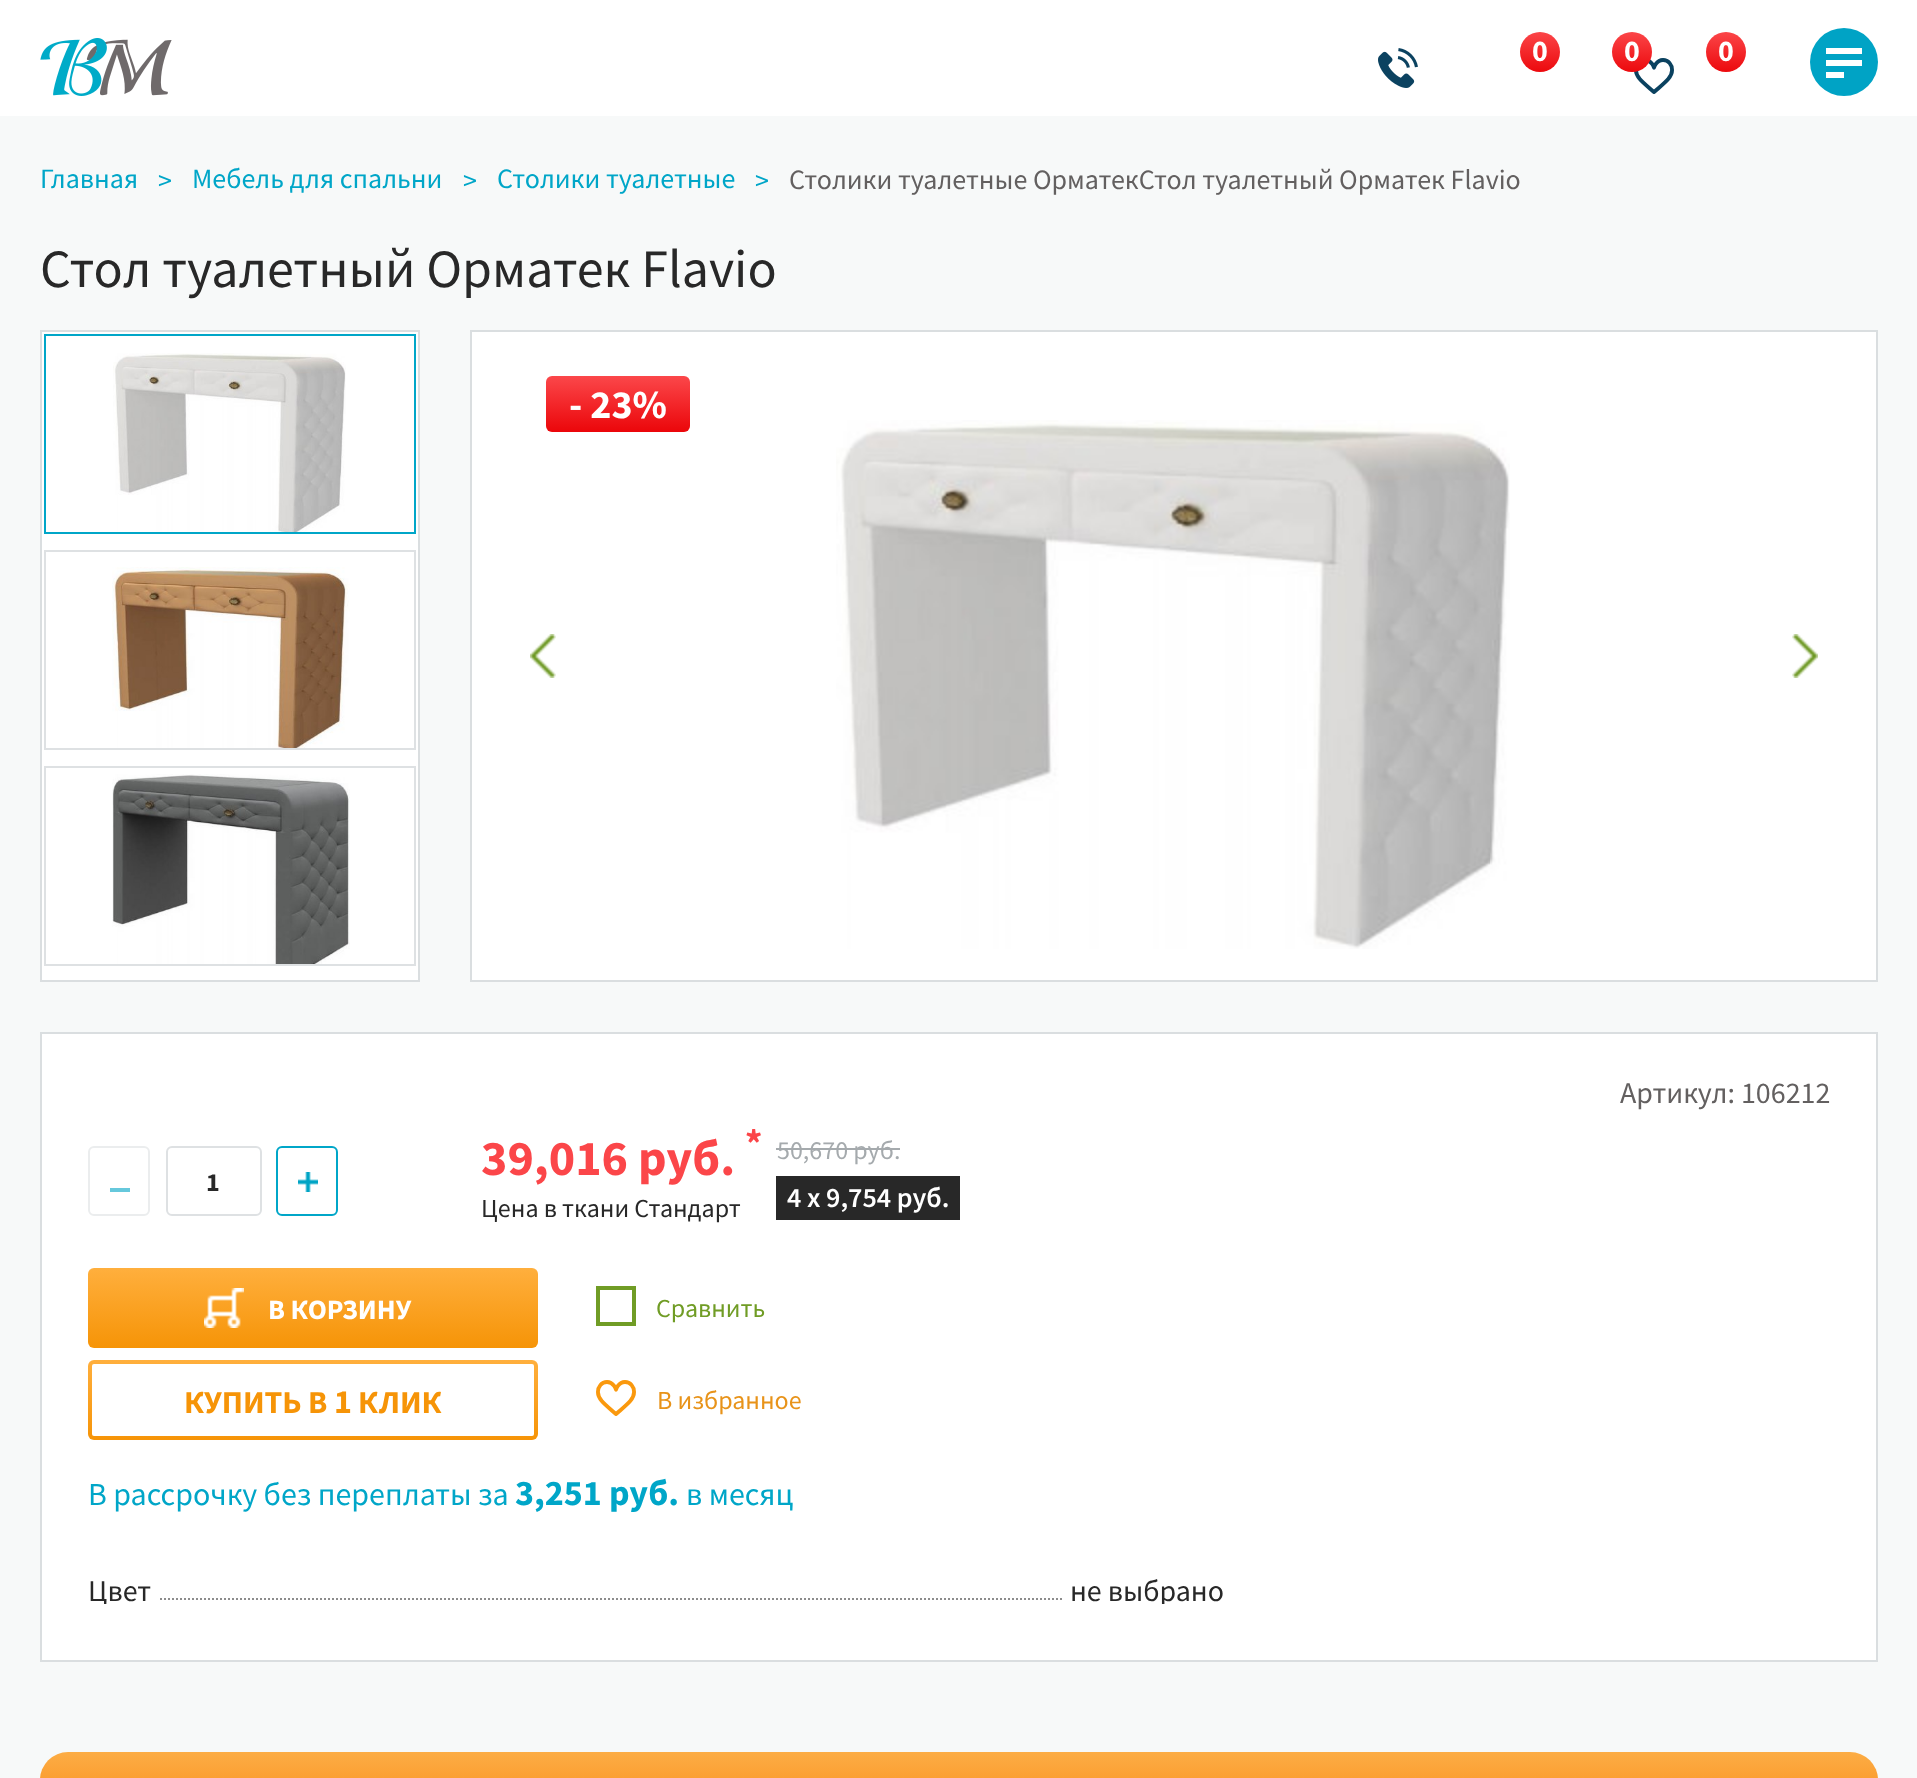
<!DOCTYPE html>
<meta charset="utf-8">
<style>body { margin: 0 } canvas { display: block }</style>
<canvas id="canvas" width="1917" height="1778"></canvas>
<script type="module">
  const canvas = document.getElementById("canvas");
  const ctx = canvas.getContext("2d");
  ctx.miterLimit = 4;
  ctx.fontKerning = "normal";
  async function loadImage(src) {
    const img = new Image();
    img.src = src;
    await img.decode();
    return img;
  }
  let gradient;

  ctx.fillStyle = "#f7f9f9";
  ctx.fillRect(0, 0, 1917, 1778);
  ctx.fillStyle = "#ffffff";
  ctx.fillRect(0, 0, 1917, 116);
  ctx.drawImage(await loadImage("img1.png"), 40, 38, 132, 58);
  ctx.drawImage(await loadImage("img2.png"), 1378, 48, 40, 40);
  gradient = ctx.createLinearGradient(1540, 32, 1540, 72);
  gradient.addColorStop(0, "#fb4548");
  gradient.addColorStop(1, "#ec090d");
  ctx.fillStyle = gradient;
  ctx.beginPath();
  ctx.arc(1540, 52, 20, 0, Math.PI * 2);
  ctx.fill();
  ctx.font = "bold 30px Source Sans Pro";
  ctx.fillStyle = "#ffffff";
  ctx.fillText("0", 1532, 61);
  ctx.drawImage(await loadImage("img3.png"), 1634, 58, 40, 36);
  gradient = ctx.createLinearGradient(1632, 32, 1632, 72);
  gradient.addColorStop(0, "#fb4548");
  gradient.addColorStop(1, "#ec090d");
  ctx.fillStyle = gradient;
  ctx.beginPath();
  ctx.arc(1632, 52, 20, 0, Math.PI * 2);
  ctx.fill();
  ctx.fillStyle = "#ffffff";
  ctx.fillText("0", 1624, 61);
  gradient = ctx.createLinearGradient(1726, 32, 1726, 72);
  gradient.addColorStop(0, "#fb4548");
  gradient.addColorStop(1, "#ec090d");
  ctx.fillStyle = gradient;
  ctx.beginPath();
  ctx.arc(1726, 52, 20, 0, Math.PI * 2);
  ctx.fill();
  ctx.fillStyle = "#ffffff";
  ctx.fillText("0", 1718, 61);
  ctx.fillStyle = "#00a3c5";
  ctx.beginPath();
  ctx.arc(1844, 62, 34, 0, Math.PI * 2);
  ctx.fill();
  ctx.fillStyle = "#ffffff";
  ctx.fillRect(1826, 60, 36, 6);
  ctx.fillRect(1826, 48, 36, 6);
  ctx.fillRect(1826, 72, 18, 6);
  ctx.font = "28px Source Sans Pro";
  ctx.fillStyle = "#00a6c8";
  ctx.fillText("Главная", 40, 188);
  ctx.fillText(">", 158, 190);
  ctx.fillText("Мебель для спальни", 192, 188);
  ctx.fillText(">", 463, 190);
  ctx.fillText("Столики туалетные", 497, 188);
  ctx.fillText(">", 755, 190);
  ctx.fillStyle = "#636060";
  ctx.fillText("Столики туалетные ОрматекСтол туалетный Орматек Flavio", 789, 189);
  ctx.font = "54px Source Sans Pro";
  ctx.fillStyle = "#282828";
  ctx.fillText("Стол туалетный Орматек Flavio", 40, 287);
  ctx.fillStyle = "#ffffff";
  ctx.beginPath();
  ctx.rect(41, 331, 378, 650);
  ctx.fill();
  ctx.strokeStyle = "#dadee0";
  ctx.lineWidth = 2;
  ctx.stroke();
  ctx.strokeStyle = "#00a6c8";
  ctx.strokeRect(45, 335, 370, 198);
  ctx.drawImage(await loadImage("img4.png"), 113, 353, 233, 179);
  ctx.strokeStyle = "#dee1e3";
  ctx.strokeRect(45, 551, 370, 198);
  ctx.drawImage(await loadImage("img5.png"), 112, 567, 238, 181);
  ctx.strokeRect(45, 767, 370, 198);
  ctx.drawImage(await loadImage("img6.png"), 112, 774, 238, 190);
  ctx.beginPath();
  ctx.rect(471, 331, 1406, 650);
  ctx.fill();
  ctx.strokeStyle = "#dadee0";
  ctx.stroke();
  gradient = ctx.createLinearGradient(618, 376, 618, 432);
  gradient.addColorStop(0, "#fb474a");
  gradient.addColorStop(1, "#eb060a");
  ctx.fillStyle = gradient;
  ctx.beginPath();
  ctx.roundRect(546, 376, 144, 56, 6);
  ctx.fill();
  ctx.font = "bold 40px Source Sans Pro";
  ctx.fillStyle = "#ffffff";
  ctx.fillText("- 23%", 569, 418);
  ctx.drawImage(await loadImage("img7.png"), 530, 634, 26, 44);
  ctx.drawImage(await loadImage("img8.png"), 836, 420, 674, 529);
  ctx.drawImage(await loadImage("img9.png"), 1792, 634, 26, 44);
  ctx.beginPath();
  ctx.rect(41, 1033, 1836, 628);
  ctx.fill();
  ctx.stroke();
  ctx.font = "30px Source Sans Pro";
  ctx.fillStyle = "#636060";
  ctx.fillText("Артикул: 106212", 1620, 1103);
  ctx.beginPath();
  ctx.roundRect(89, 1147, 60, 68, 5);
  ctx.strokeStyle = "#ebedee";
  ctx.stroke();
  ctx.fillStyle = "#66c8dc";
  ctx.fillRect(110, 1188, 20, 4);
  ctx.beginPath();
  ctx.roundRect(167, 1147, 94, 68, 5);
  ctx.strokeStyle = "#dee1e3";
  ctx.stroke();
  ctx.font = "bold 26px Source Sans Pro";
  ctx.fillStyle = "#282828";
  ctx.fillText("1", 206, 1191);
  ctx.beginPath();
  ctx.roundRect(277, 1147, 60, 68, 5);
  ctx.strokeStyle = "#00a6c8";
  ctx.stroke();
  ctx.drawImage(await loadImage("img10.png"), 298, 1172, 20, 20);
  ctx.font = "bold 38px Source Sans Pro";
  ctx.fillStyle = "#fb4649";
  ctx.fillText("*", 745, 1156);
  ctx.font = "bold 50px Source Sans Pro";
  ctx.fillText("39,016 руб.", 481, 1175);
  ctx.font = "26px Source Sans Pro";
  ctx.fillStyle = "#282828";
  ctx.fillText("Цена в ткани Стандарт", 481, 1217);
  ctx.fillStyle = "#a5aaad";
  ctx.fillText("50,670 руб.", 777, 1159);
  ctx.fillRect(776, 1148, 124, 2);
  ctx.fillStyle = "#282828";
  ctx.fillRect(776, 1176, 184, 44);
  ctx.font = "600 28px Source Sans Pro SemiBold";
  ctx.fillStyle = "#ffffff";
  ctx.fillText("4 х 9,754 руб.", 787, 1207);
  gradient = ctx.createLinearGradient(313, 1268, 313, 1348);
  gradient.addColorStop(0, "#ffaf3d");
  gradient.addColorStop(1, "#f69407");
  ctx.fillStyle = gradient;
  ctx.beginPath();
  ctx.roundRect(88, 1268, 450, 80, 6);
  ctx.fill();
  ctx.drawImage(await loadImage("img11.png"), 204, 1288, 40, 40);
  ctx.font = "bold 28px Source Sans Pro";
  ctx.fillStyle = "#ffffff";
  ctx.fillText("В КОРЗИНУ", 268, 1319);
  ctx.strokeStyle = "#709c25";
  ctx.lineWidth = 4;
  ctx.strokeRect(598, 1288, 36, 36);
  ctx.font = "26px Source Sans Pro";
  ctx.fillStyle = "#709c25";
  ctx.fillText("Сравнить", 656, 1317);
  gradient = ctx.createLinearGradient(313, 1360, 313, 1440);
  gradient.addColorStop(0, "#ffaf3d");
  gradient.addColorStop(1, "#f69407");
  ctx.fillStyle = gradient;
  ctx.beginPath();
  ctx.roundRect(88, 1360, 450, 80, 6);
  ctx.fill();
  ctx.fillStyle = "#ffffff";
  ctx.beginPath();
  ctx.roundRect(92, 1364, 442, 72, 2);
  ctx.fill();
  ctx.font = "bold 32px Source Sans Pro";
  ctx.fillStyle = "#f69407";
  ctx.fillText("КУПИТЬ В", 184, 1413);
  ctx.font = "bold 34px Source Sans Pro";
  ctx.fillText("1", 334, 1413);
  ctx.font = "bold 32px Source Sans Pro";
  ctx.fillText("КЛИК", 358, 1413);
  ctx.drawImage(await loadImage("img12.png"), 596, 1380, 40, 36);
  ctx.font = "26px Source Sans Pro";
  ctx.fillStyle = "#e89319";
  ctx.fillText("В избранное", 657, 1409);
  ctx.font = "32px Source Sans Pro";
  ctx.fillStyle = "#00a6c8";
  ctx.fillText("В рассрочку без переплаты за", 88, 1505);
  ctx.font = "bold 36px Source Sans Pro";
  ctx.fillText("3,251 руб.", 515, 1505);
  ctx.font = "32px Source Sans Pro";
  ctx.fillText("в месяц", 686, 1505);
  ctx.save();
  ctx.beginPath();
  ctx.rect(88, 1574, 1136, 30);
  ctx.clip();
  ctx.beginPath();
  ctx.moveTo(108, 1599);
  ctx.lineTo(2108, 1599);
  ctx.strokeStyle = "#8c8c8c";
  ctx.lineWidth = 2;
  ctx.setLineDash([2, 2]);
  ctx.stroke();
  ctx.restore();
  ctx.fillStyle = "#ffffff";
  ctx.fillRect(108, 1598, 50, 2);
  ctx.save();
  ctx.beginPath();
  ctx.rect(88, 1574, 1136, 30);
  ctx.clip();
  ctx.font = "30px Source Sans Pro";
  ctx.fillStyle = "#282828";
  ctx.fillText("Цвет", 88, 1601);
  ctx.restore();
  ctx.fillRect(1064, 1598, 158, 2);
  ctx.save();
  ctx.beginPath();
  ctx.rect(1064, 1574, 160, 30);
  ctx.clip();
  ctx.font = "30px Source Sans Pro";
  ctx.fillStyle = "#282828";
  ctx.fillText("не выбрано", 1070, 1601);
  ctx.restore();
  gradient = ctx.createLinearGradient(959, 1752, 959, 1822);
  gradient.addColorStop(0, "#fcad45");
  gradient.addColorStop(1, "#fa8815");
  ctx.fillStyle = gradient;
  ctx.beginPath();
  ctx.roundRect(40, 1752, 1838, 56, 30);
  ctx.fill();
</script>
